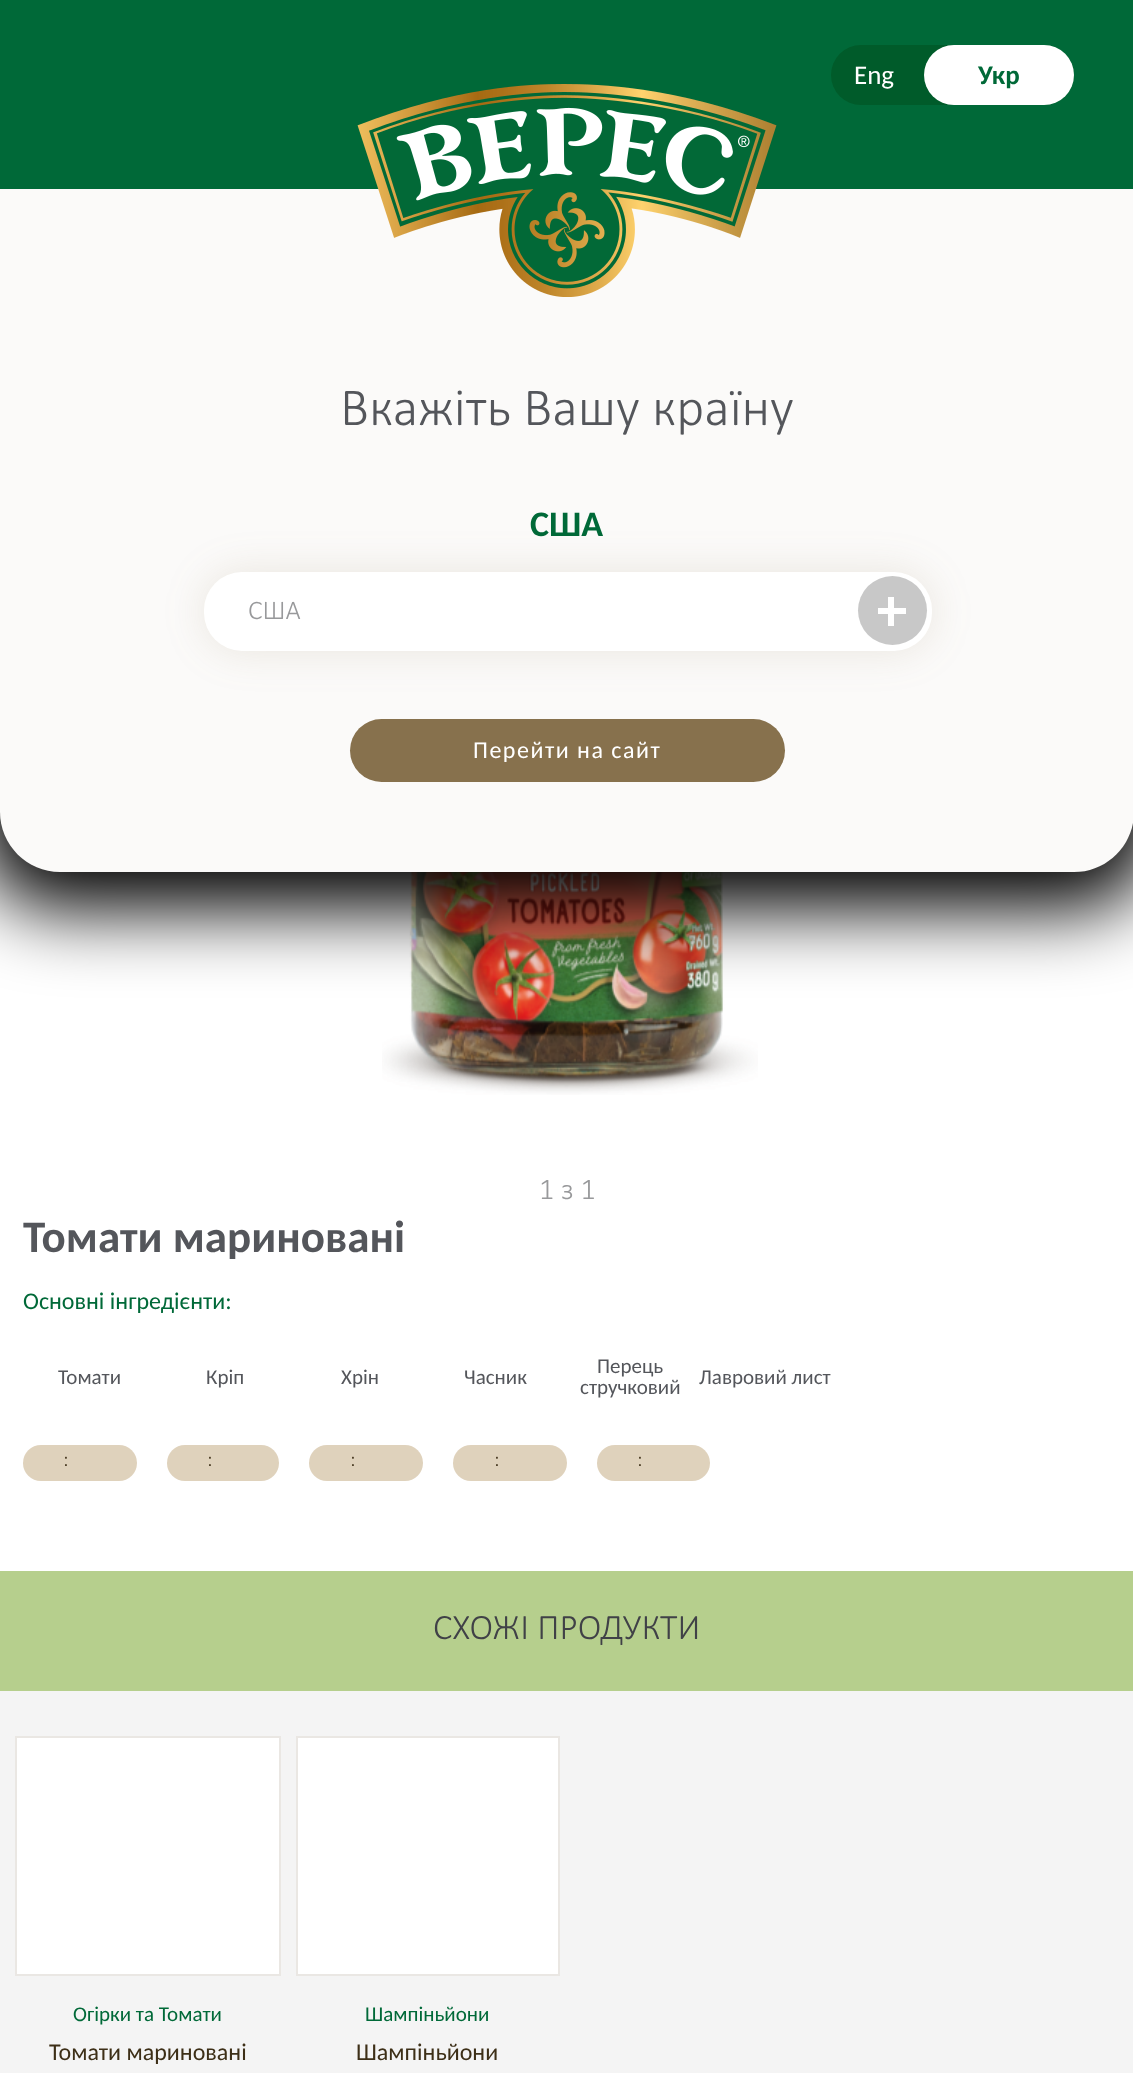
<!DOCTYPE html>
<meta charset="utf-8">
<style>body { margin: 0 } canvas { display: block }</style>
<canvas id="canvas" width="1133" height="2073"></canvas>
<script type="module">
  const canvas = document.getElementById("canvas");
  const ctx = canvas.getContext("2d");
  ctx.miterLimit = 4;
  ctx.fontKerning = "normal";
  async function loadImage(src) {
    const img = new Image();
    img.src = src;
    await img.decode();
    return img;
  }

  ctx.fillStyle = "#ffffff";
  ctx.fillRect(0, 0, 1133, 2073);
  ctx.drawImage(await loadImage("img2.png"), 382, 872, 376, 223);
  ctx.fillStyle = "#000000";
  ctx.filter = "blur(37.5px)";
  ctx.beginPath();
  ctx.roundRect(-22, -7, 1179, 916, 83);
  ctx.fill();
  ctx.filter = "none";
  ctx.fillStyle = "#fbfaf9";
  ctx.beginPath();
  ctx.moveTo(0, 0);
  ctx.lineTo(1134, 0);
  ctx.lineTo(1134, 812);
  ctx.bezierCurveTo(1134, 845, 1107, 872, 1074, 872);
  ctx.lineTo(60, 872);
  ctx.bezierCurveTo(27, 872, 0, 845, 0, 812);
  ctx.closePath();
  ctx.fill();
  ctx.fillStyle = "#006938";
  ctx.fillRect(0, 0, 1133, 189);
  ctx.fillStyle = "#005b2a";
  ctx.beginPath();
  ctx.roundRect(831, 45, 243, 60, 30);
  ctx.fill();
  ctx.font = "27px Carlito";
  ctx.fillStyle = "#ffffff";
  ctx.fillText("Eng", 854, 84);
  ctx.beginPath();
  ctx.roundRect(924, 45, 150, 60, 30);
  ctx.fill();
  ctx.font = "bold 27px Carlito";
  ctx.fillStyle = "#006938";
  ctx.fillText("Укр", 978, 84);
  ctx.drawImage(await loadImage("img1.png"), 357, 84, 420, 213);
  ctx.font = "300 54px Calibri";
  ctx.fillStyle = "#54565b";
  ctx.fillText("Вкажіть Вашу країну", 340, 425);
  ctx.font = "bold 36px Carlito";
  ctx.fillStyle = "#006938";
  ctx.fillText("США", 530, 536);
  ctx.fillStyle = "rgba(135, 113, 77, 0.15)";
  ctx.filter = "blur(20px)";
  ctx.beginPath();
  ctx.roundRect(204, 572, 728, 79, 38);
  ctx.fill();
  ctx.filter = "none";
  ctx.fillStyle = "#ffffff";
  ctx.beginPath();
  ctx.roundRect(204, 572, 728, 79, 38);
  ctx.fill();
  ctx.font = "300 27px Calibri";
  ctx.fillStyle = "#98999b";
  ctx.fillText("США", 248, 619);
  ctx.fillStyle = "#c8c8c8";
  ctx.beginPath();
  ctx.arc(892.5, 610.5, 34.5, 0, Math.PI * 2);
  ctx.fill();
  ctx.fillStyle = "#ffffff";
  ctx.fillRect(878, 608, 28, 6);
  ctx.fillRect(888, 597, 6, 29);
  ctx.fillStyle = "#87714d";
  ctx.beginPath();
  ctx.roundRect(350, 719, 435, 63, 31.5);
  ctx.fill();
  ctx.letterSpacing = "1.5px";
  ctx.font = "24px Carlito";
  ctx.fillStyle = "#ffffff";
  ctx.fillText("Перейти на сайт", 473, 758);
  ctx.letterSpacing = "0px";
  ctx.font = "300 30px Calibri";
  ctx.fillStyle = "#98999b";
  ctx.fillText("1 з 1", 539, 1199);
  ctx.font = "bold 45px Carlito";
  ctx.fillStyle = "#54565b";
  ctx.fillText("Томати мариновані", 23, 1252);
  ctx.font = "24px Carlito";
  ctx.fillStyle = "#006938";
  ctx.fillText("Основні інгредієнти:", 23, 1309);
  ctx.font = "21px Carlito";
  ctx.fillStyle = "#54565b";
  ctx.fillText("Томати", 58, 1384);
  ctx.fillText("Кріп", 206, 1384);
  ctx.fillText("Хрін", 341, 1384);
  ctx.fillText("Часник", 464, 1384);
  ctx.fillText("Перець", 597, 1373);
  ctx.fillText("стручковий", 580, 1394);
  ctx.fillText("Лавровий лист", 699, 1384);
  ctx.fillStyle = "#dfd2bc";
  ctx.beginPath();
  ctx.roundRect(23, 1445, 114, 36, 18);
  ctx.fill();
  ctx.font = "300 21px Calibri";
  ctx.fillStyle = "#3d2f17";
  ctx.fillText(":", 63, 1466);
  ctx.fillStyle = "#dfd2bc";
  ctx.beginPath();
  ctx.roundRect(167, 1445, 112, 36, 18);
  ctx.fill();
  ctx.fillStyle = "#3d2f17";
  ctx.fillText(":", 207, 1466);
  ctx.fillStyle = "#dfd2bc";
  ctx.beginPath();
  ctx.roundRect(309, 1445, 114, 36, 18);
  ctx.fill();
  ctx.fillStyle = "#3d2f17";
  ctx.fillText(":", 350, 1466);
  ctx.fillStyle = "#dfd2bc";
  ctx.beginPath();
  ctx.roundRect(453, 1445, 114, 36, 18);
  ctx.fill();
  ctx.fillStyle = "#3d2f17";
  ctx.fillText(":", 494, 1466);
  ctx.fillStyle = "#dfd2bc";
  ctx.beginPath();
  ctx.roundRect(597, 1445, 113, 36, 18);
  ctx.fill();
  ctx.fillStyle = "#3d2f17";
  ctx.fillText(":", 637, 1466);
  ctx.fillStyle = "#f4f4f4";
  ctx.fillRect(0, 1691, 1133, 382);
  ctx.fillStyle = "#b6cf8d";
  ctx.fillRect(0, 1571, 1133, 120);
  ctx.font = "300 36px Calibri";
  ctx.fillStyle = "#404147";
  ctx.fillText("СХОЖІ ПРОДУКТИ", 433, 1639);
  ctx.fillStyle = "#ffffff";
  ctx.beginPath();
  ctx.rect(16, 1737, 264, 238);
  ctx.fill();
  ctx.strokeStyle = "#eae7e3";
  ctx.lineWidth = 2;
  ctx.stroke();
  ctx.font = "21px Carlito";
  ctx.fillStyle = "#006938";
  ctx.fillText("Огірки та Томати", 73, 2021);
  ctx.font = "24px Carlito";
  ctx.fillStyle = "#3d2f17";
  ctx.fillText("Томати маринованi", 49, 2060);
  ctx.fillStyle = "#ffffff";
  ctx.beginPath();
  ctx.rect(297, 1737, 262, 238);
  ctx.fill();
  ctx.stroke();
  ctx.font = "21px Carlito";
  ctx.fillStyle = "#006938";
  ctx.fillText("Шампіньйони", 365, 2021);
  ctx.font = "24px Carlito";
  ctx.fillStyle = "#3d2f17";
  ctx.fillText("Шампiньйони", 356, 2060);
</script>
